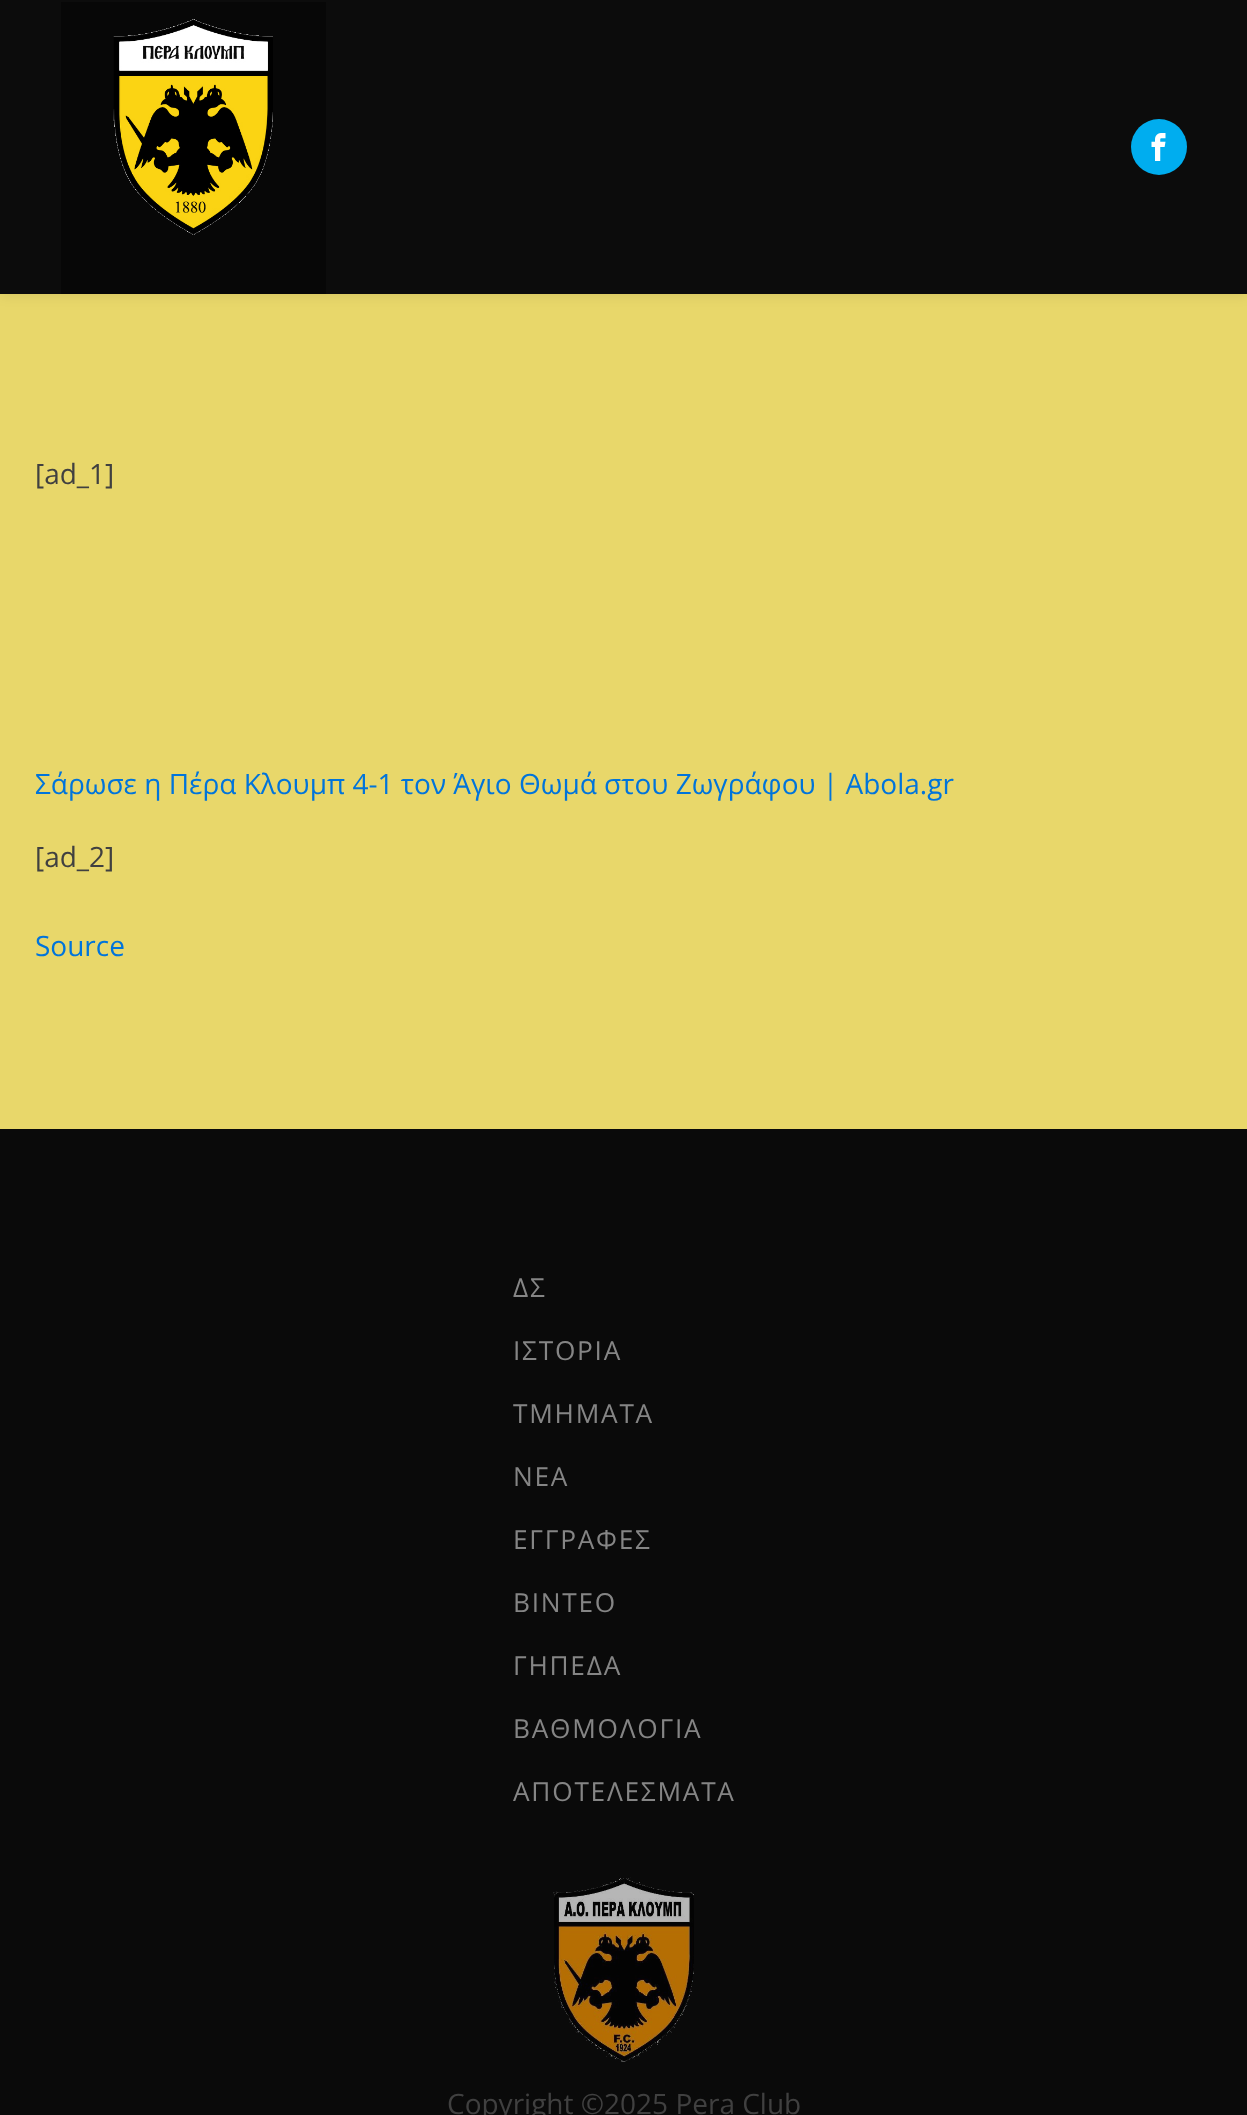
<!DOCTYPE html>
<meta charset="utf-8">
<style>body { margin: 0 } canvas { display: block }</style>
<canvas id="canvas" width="1247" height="2115"></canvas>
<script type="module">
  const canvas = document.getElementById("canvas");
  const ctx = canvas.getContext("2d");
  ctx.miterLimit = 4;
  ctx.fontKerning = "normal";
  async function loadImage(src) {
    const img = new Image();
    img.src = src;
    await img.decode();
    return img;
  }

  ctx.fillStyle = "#e8d76a";
  ctx.fillRect(0, 0, 1247, 2115);
  ctx.fillStyle = "rgba(0, 0, 0, 0.1)";
  ctx.filter = "blur(7px)";
  ctx.beginPath();
  ctx.rect(0, 0, 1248, 294);
  ctx.fill();
  ctx.filter = "none";
  ctx.fillStyle = "#0c0c0c";
  ctx.fillRect(0, 0, 1247, 294);
  ctx.fillStyle = "#070707";
  ctx.fillRect(61, 2, 265, 292);
  ctx.drawImage(await loadImage("img1.png"), 113, 19, 160, 216);
  ctx.fillStyle = "#00adef";
  ctx.beginPath();
  ctx.arc(1159, 147, 28, 0, Math.PI * 2);
  ctx.fill();
  ctx.drawImage(await loadImage("img2.png"), 1151, 133, 15, 28);
  ctx.font = "28px Open Sans";
  ctx.fillStyle = "#404040";
  ctx.fillText("[ad_1]", 35, 484);
  ctx.fillStyle = "#0074db";
  ctx.fillText("Σάρωσε η Πέρα Κλουμπ 4-1 τον Άγιο Θωμά στου Ζωγράφου | Abola.gr", 35, 794);
  ctx.fillStyle = "#404040";
  ctx.fillText("[ad_2]", 35, 867);
  ctx.fillStyle = "#0074db";
  ctx.fillText("Source", 35, 956);
  ctx.fillStyle = "#0a0a0a";
  ctx.fillRect(0, 1129, 1247, 986);
  ctx.letterSpacing = "1.75px";
  ctx.font = "26.25px Open Sans";
  ctx.fillStyle = "#858585";
  ctx.fillText("ΔΣ", 513, 1297);
  ctx.fillText("ΙΣΤΟΡΙΑ", 513, 1360);
  ctx.fillText("ΤΜΗΜΑΤΑ", 513, 1423);
  ctx.fillText("NEA", 513, 1486);
  ctx.fillText("ΕΓΓΡΑΦΕΣ", 513, 1549);
  ctx.fillText("ΒΙΝΤΕΟ", 513, 1612);
  ctx.fillText("ΓΗΠΕΔΑ", 513, 1675);
  ctx.fillText("ΒΑΘΜΟΛΟΓΙΑ", 513, 1738);
  ctx.fillText("ΑΠΟΤΕΛΕΣΜΑΤΑ", 513, 1801);
  ctx.drawImage(await loadImage("img3.png"), 553, 1877, 141, 185);
  ctx.letterSpacing = "0px";
  ctx.font = "28px Open Sans";
  ctx.fillStyle = "#404040";
  ctx.fillText("Copyright ©2025 Pera Club", 447, 2114);
</script>
